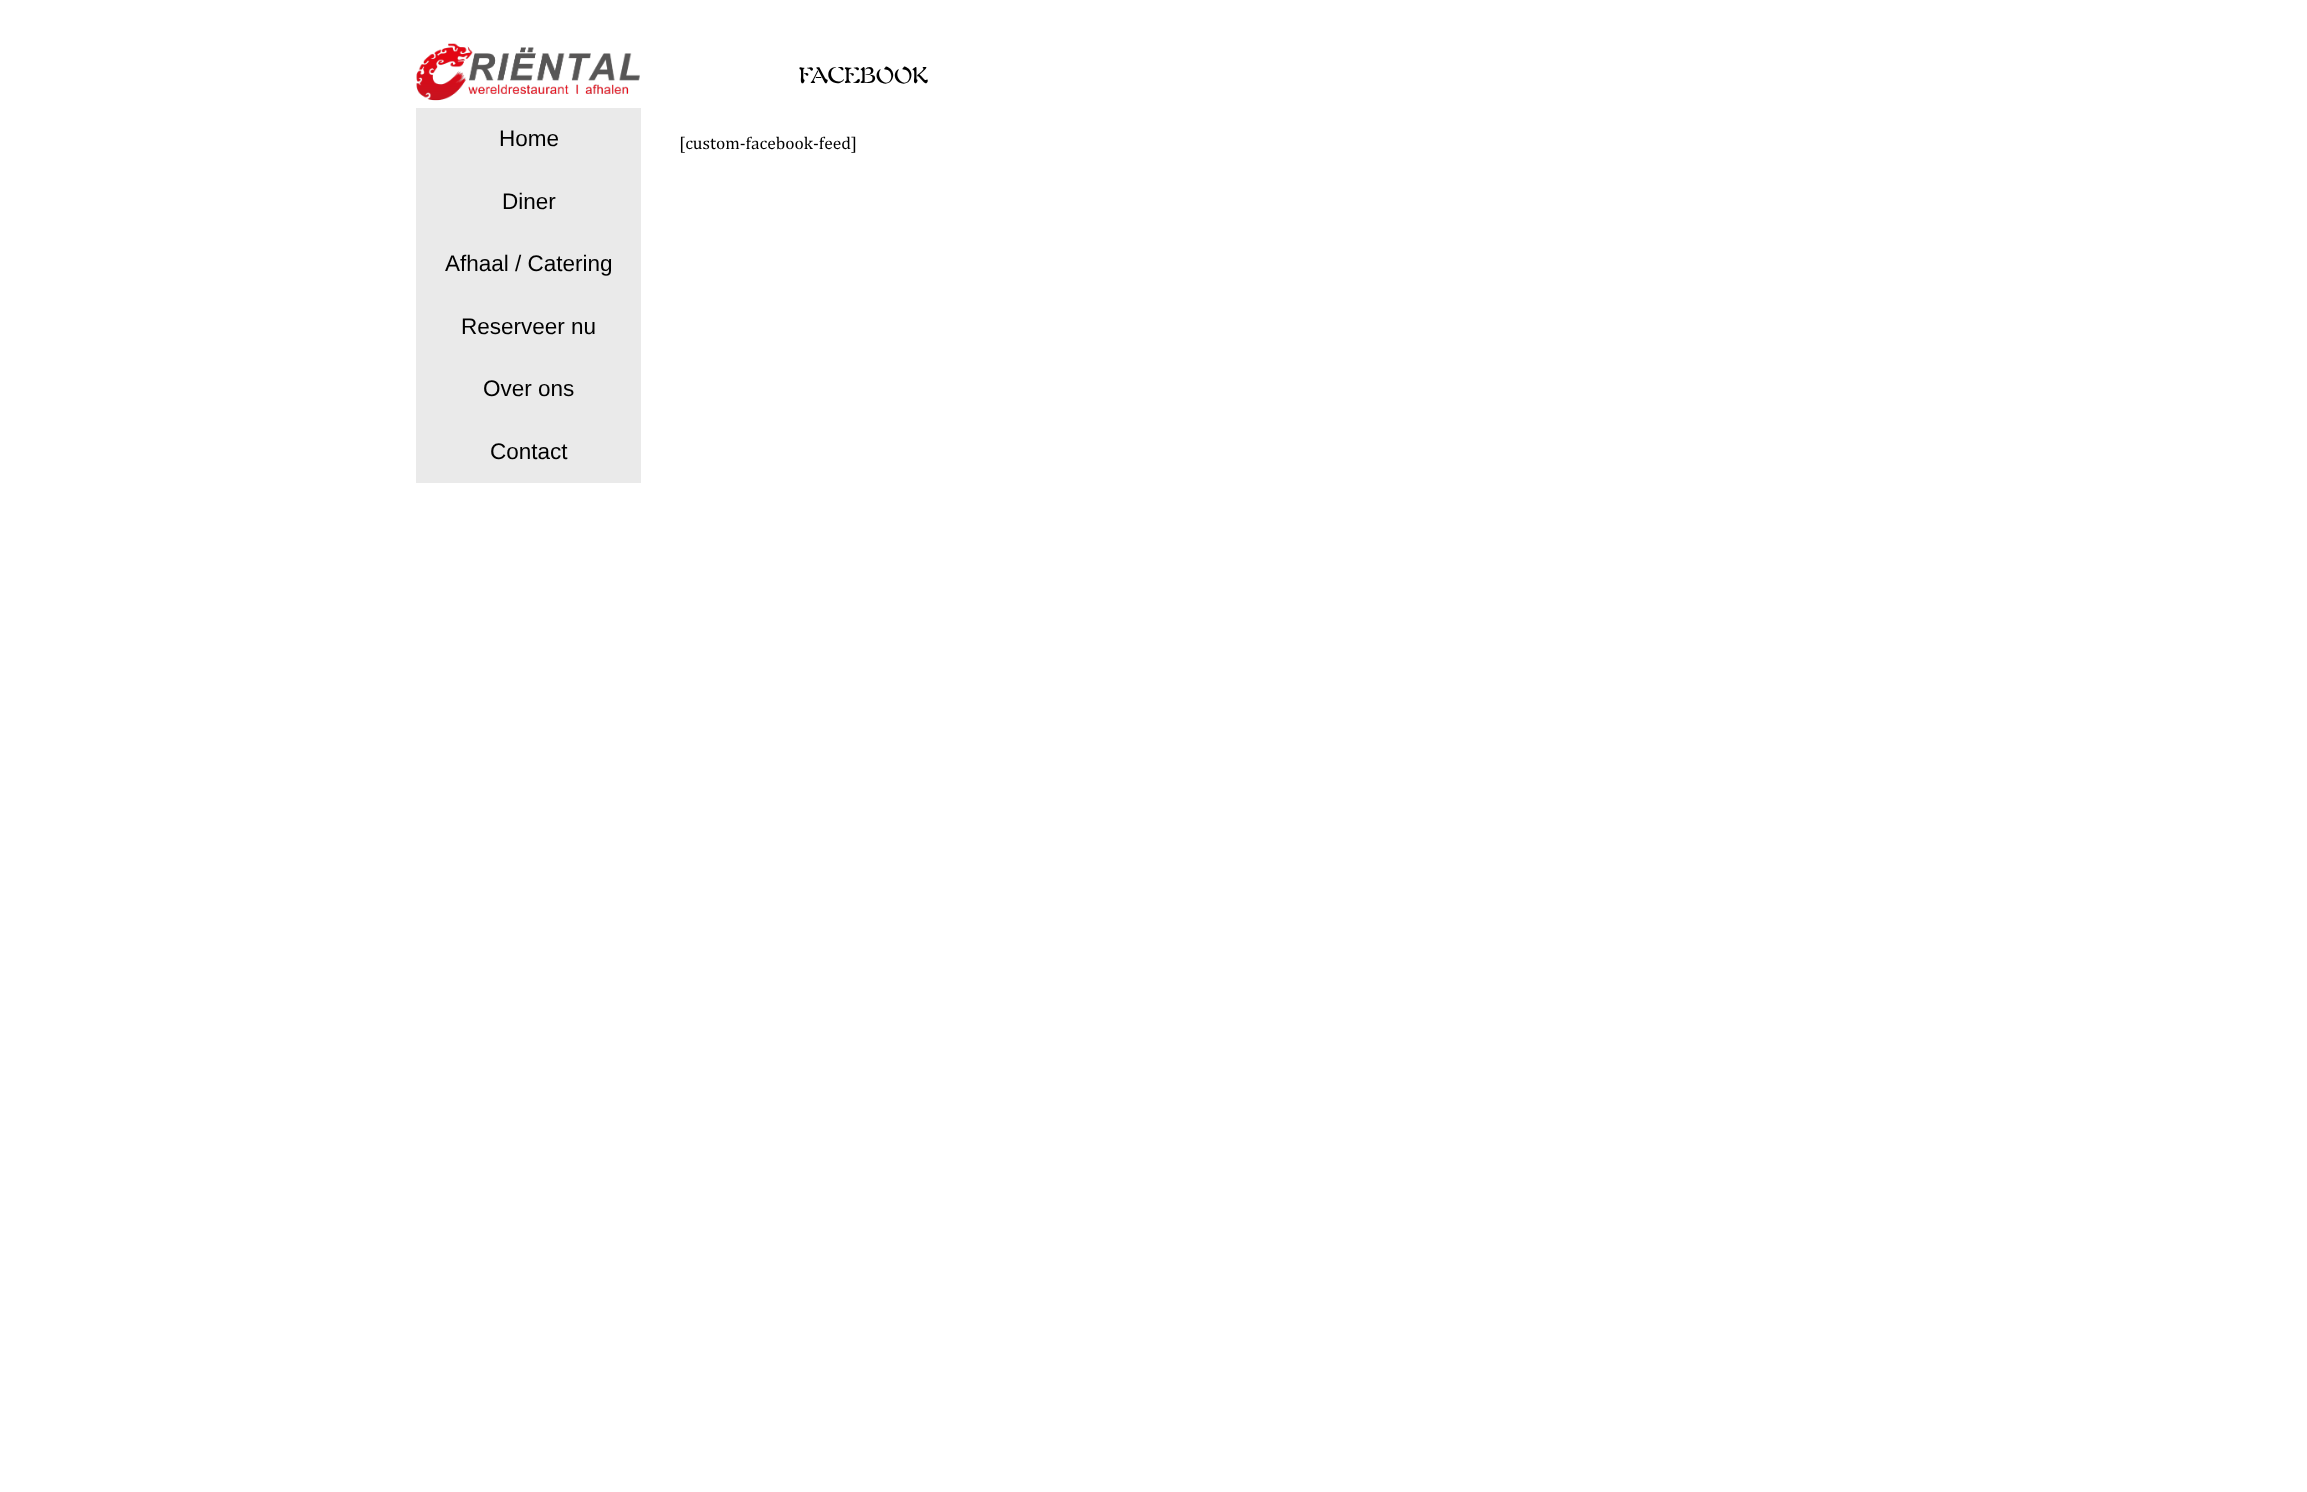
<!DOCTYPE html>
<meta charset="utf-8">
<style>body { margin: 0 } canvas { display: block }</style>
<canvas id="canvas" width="2307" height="1492"></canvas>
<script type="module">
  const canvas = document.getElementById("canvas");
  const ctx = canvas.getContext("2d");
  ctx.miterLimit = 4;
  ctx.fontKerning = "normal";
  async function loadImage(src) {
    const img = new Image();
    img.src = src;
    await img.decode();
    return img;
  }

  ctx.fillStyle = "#ffffff";
  ctx.fillRect(0, 0, 2307, 1492);
  ctx.font = "22.5px 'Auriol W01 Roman'";
  ctx.fillStyle = "#000000";
  ctx.fillText("FACEBOOK", 799, 83);
  ctx.font = "17.5px 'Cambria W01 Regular'";
  ctx.fillText("[custom-facebook-feed]", 679, 149);
  ctx.drawImage(await loadImage("img1.png"), 416, 43, 224, 58);
  ctx.fillStyle = "#eaeaea";
  ctx.fillRect(416, 108, 225, 375);
  ctx.font = "22.5px Liberation Sans";
  ctx.fillStyle = "#000000";
  ctx.fillText("Home", 499, 146);
  ctx.fillText("Diner", 502, 209);
  ctx.fillText("Afhaal / Catering", 445, 271);
  ctx.fillText("Reserveer nu", 461, 334);
  ctx.fillText("Over ons", 483, 396);
  ctx.fillText("Contact", 490, 459);
</script>
